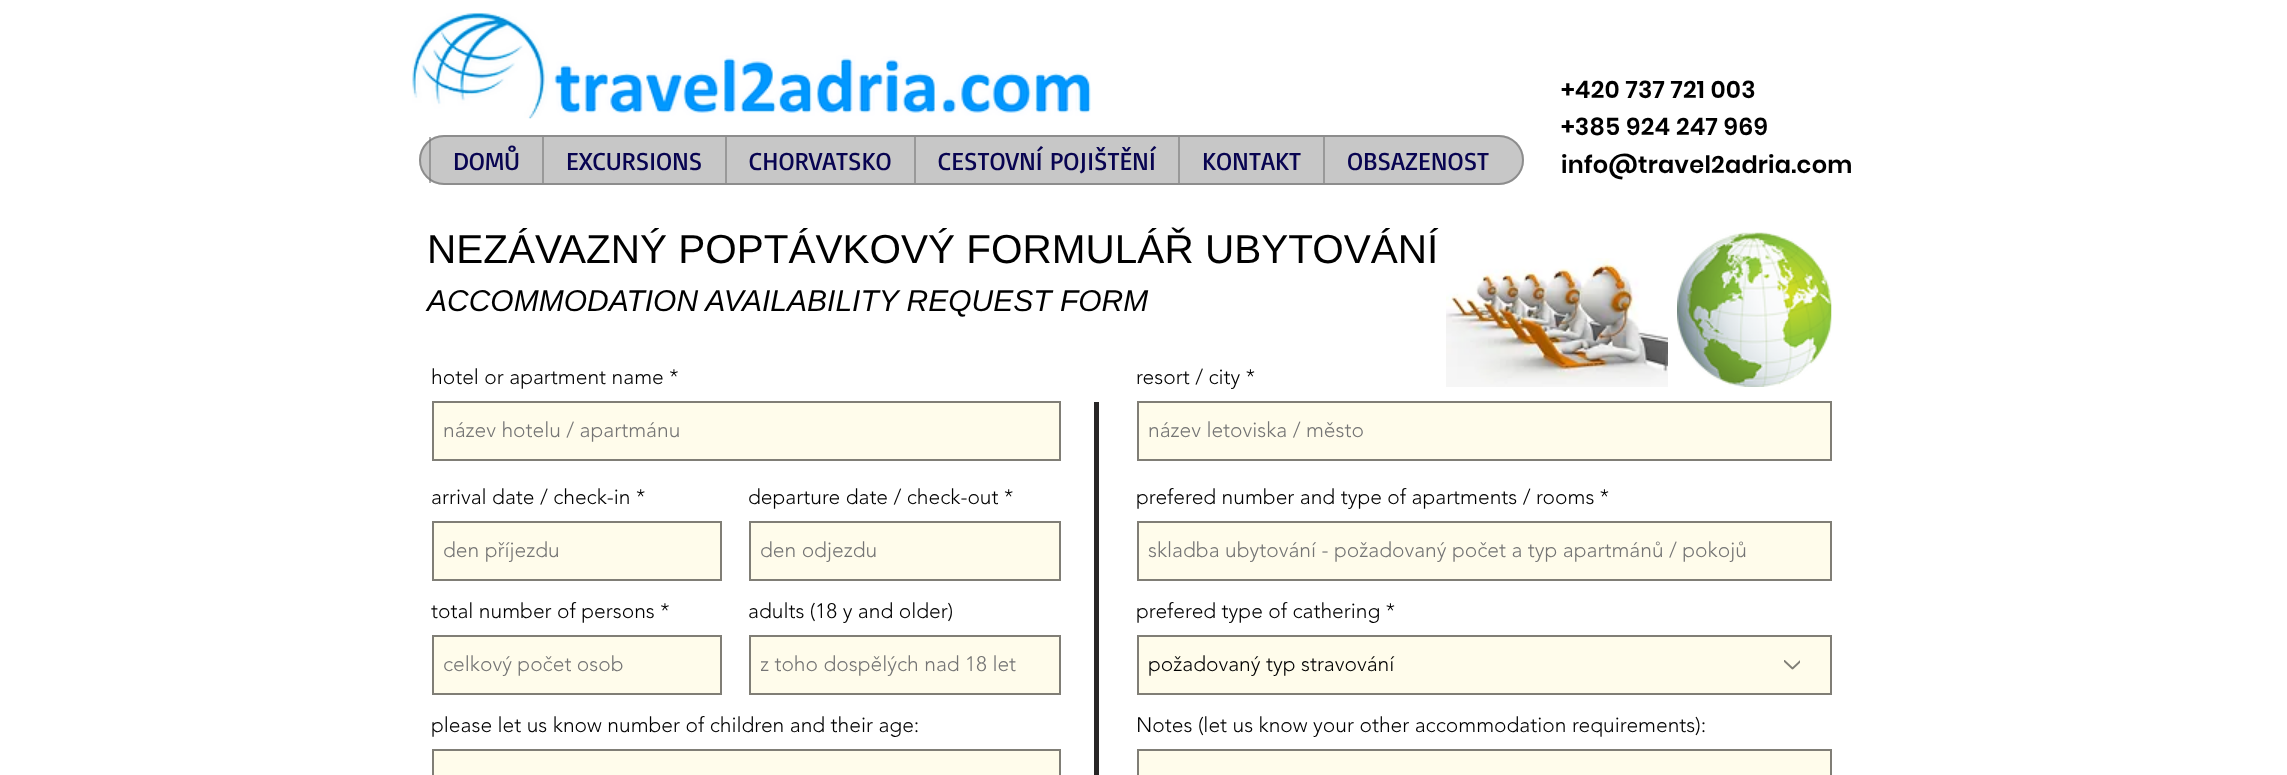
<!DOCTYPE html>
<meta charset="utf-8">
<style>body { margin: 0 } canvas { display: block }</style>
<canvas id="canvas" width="2287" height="775"></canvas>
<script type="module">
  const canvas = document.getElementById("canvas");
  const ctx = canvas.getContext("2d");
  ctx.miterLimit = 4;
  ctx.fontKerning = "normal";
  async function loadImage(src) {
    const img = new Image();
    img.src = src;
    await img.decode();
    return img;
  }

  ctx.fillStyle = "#ffffff";
  ctx.fillRect(0, 0, 2287, 775);
  ctx.drawImage(await loadImage("img1.png"), 412, 12, 679, 107);
  ctx.fillStyle = "#c7c7c7";
  ctx.beginPath();
  ctx.roundRect(419, 135, 1105, 50, 25);
  ctx.fill();
  ctx.beginPath();
  ctx.roundRect(420, 136, 1103, 48, 24);
  ctx.strokeStyle = "rgba(117, 117, 117, 0.71)";
  ctx.lineWidth = 2;
  ctx.stroke();
  ctx.fillStyle = "rgba(117, 117, 117, 0.56)";
  ctx.fillRect(429, 137, 2, 46);
  ctx.font = "25.5px Basic";
  ctx.fillStyle = "#080451";
  ctx.fillText("DOMŮ", 453, 170);
  ctx.fillStyle = "#999999";
  ctx.fillRect(542, 137, 2, 46);
  ctx.fillStyle = "#080451";
  ctx.fillText("EXCURSIONS", 566, 170);
  ctx.fillStyle = "#999999";
  ctx.fillRect(725, 137, 2, 46);
  ctx.fillStyle = "#080451";
  ctx.fillText("CHORVATSKO", 749, 170);
  ctx.fillStyle = "#999999";
  ctx.fillRect(914, 137, 2, 46);
  ctx.fillStyle = "#080451";
  ctx.fillText("CESTOVNÍ POJIŠTĚNÍ", 938, 170);
  ctx.fillStyle = "#999999";
  ctx.fillRect(1178, 137, 2, 46);
  ctx.fillStyle = "#080451";
  ctx.fillText("KONTAKT", 1202, 170);
  ctx.fillStyle = "#999999";
  ctx.fillRect(1323, 137, 2, 46);
  ctx.fillStyle = "#080451";
  ctx.fillText("OBSAZENOST", 1347, 170);
  ctx.letterSpacing = "0.25px";
  ctx.font = "600 24px Poppins";
  ctx.fillStyle = "#000000";
  ctx.fillText("+420 737 721 003", 1561, 98);
  ctx.fillText("+385 924 247 969", 1561, 135);
  ctx.fillText("info@travel2adria.com", 1561, 173);
  ctx.letterSpacing = "0px";
  ctx.font = "40.5px Liberation Sans";
  ctx.fillText("NEZÁVAZNÝ POPTÁVKOVÝ FORMULÁŘ UBYTOVÁNÍ", 427, 263);
  ctx.font = "italic 30px Liberation Sans";
  ctx.fillText("ACCOMMODATION AVAILABILITY REQUEST FORM", 427, 311);
  ctx.font = "300 21px 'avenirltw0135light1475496'";
  ctx.fillText("hotel or apartment name *", 431, 384);
  ctx.fillStyle = "#fffceb";
  ctx.beginPath();
  ctx.rect(433, 402, 627, 58);
  ctx.fill();
  ctx.strokeStyle = "#807e76";
  ctx.stroke();
  ctx.fillStyle = "#757575";
  ctx.fillText("název hotelu / apartmánu", 443, 437);
  ctx.fillStyle = "#282626";
  ctx.fillRect(1094, 402, 5, 373);
  ctx.fillStyle = "#000000";
  ctx.fillText("resort / city *", 1136, 384);
  ctx.fillStyle = "#fffceb";
  ctx.beginPath();
  ctx.rect(1138, 402, 693, 58);
  ctx.fill();
  ctx.stroke();
  ctx.fillStyle = "#757575";
  ctx.fillText("název letoviska / město", 1148, 437);
  ctx.fillStyle = "#000000";
  ctx.fillText("arrival date / check-in *", 431, 504);
  ctx.fillStyle = "#fffceb";
  ctx.beginPath();
  ctx.rect(433, 522, 288, 58);
  ctx.fill();
  ctx.stroke();
  ctx.fillStyle = "#757575";
  ctx.fillText("den příjezdu", 443, 557);
  ctx.fillStyle = "#000000";
  ctx.fillText("departure date / check-out *", 748, 504);
  ctx.fillStyle = "#fffceb";
  ctx.beginPath();
  ctx.rect(750, 522, 310, 58);
  ctx.fill();
  ctx.stroke();
  ctx.fillStyle = "#757575";
  ctx.fillText("den odjezdu", 760, 557);
  ctx.fillStyle = "#000000";
  ctx.fillText("prefered number and type of apartments / rooms *", 1136, 504);
  ctx.fillStyle = "#fffceb";
  ctx.beginPath();
  ctx.rect(1138, 522, 693, 58);
  ctx.fill();
  ctx.stroke();
  ctx.fillStyle = "#757575";
  ctx.fillText("skladba ubytování - požadovaný počet a typ apartmánů / pokojů", 1148, 557);
  ctx.fillStyle = "#000000";
  ctx.fillText("total number of persons *", 431, 618);
  ctx.fillStyle = "#fffceb";
  ctx.beginPath();
  ctx.rect(433, 636, 288, 58);
  ctx.fill();
  ctx.stroke();
  ctx.fillStyle = "#757575";
  ctx.fillText("celkový počet osob", 443, 671);
  ctx.fillStyle = "#000000";
  ctx.fillText("adults (18 y and older)", 748, 618);
  ctx.fillStyle = "#fffceb";
  ctx.beginPath();
  ctx.rect(750, 636, 310, 58);
  ctx.fill();
  ctx.stroke();
  ctx.save();
  ctx.beginPath();
  ctx.rect(761, 651, 294, 26);
  ctx.clip();
  ctx.fillStyle = "#757575";
  ctx.fillText("z toho dospělých nad 18 let", 760, 671);
  ctx.restore();
  ctx.fillStyle = "#000000";
  ctx.fillText("prefered type of cathering *", 1136, 618);
  ctx.fillStyle = "#fffceb";
  ctx.beginPath();
  ctx.rect(1138, 636, 693, 58);
  ctx.fill();
  ctx.stroke();
  ctx.fillStyle = "#000000";
  ctx.fillText("požadovaný typ stravování", 1148, 671);
  ctx.drawImage(await loadImage("img2.png"), 1784, 660, 16, 10);
  ctx.fillText("please let us know number of children and their age:", 431, 732);
  ctx.fillStyle = "#fffceb";
  ctx.beginPath();
  ctx.rect(433, 750, 627, 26);
  ctx.fill();
  ctx.stroke();
  ctx.fillStyle = "#000000";
  ctx.fillText("Notes (let us know your other accommodation requirements):", 1136, 732);
  ctx.fillStyle = "#fffceb";
  ctx.beginPath();
  ctx.rect(1138, 750, 693, 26);
  ctx.fill();
  ctx.stroke();
  ctx.drawImage(await loadImage("img3.png"), 1677, 232, 155, 155);
  ctx.drawImage(await loadImage("img4.png"), 1446, 258, 222, 129);
</script>
